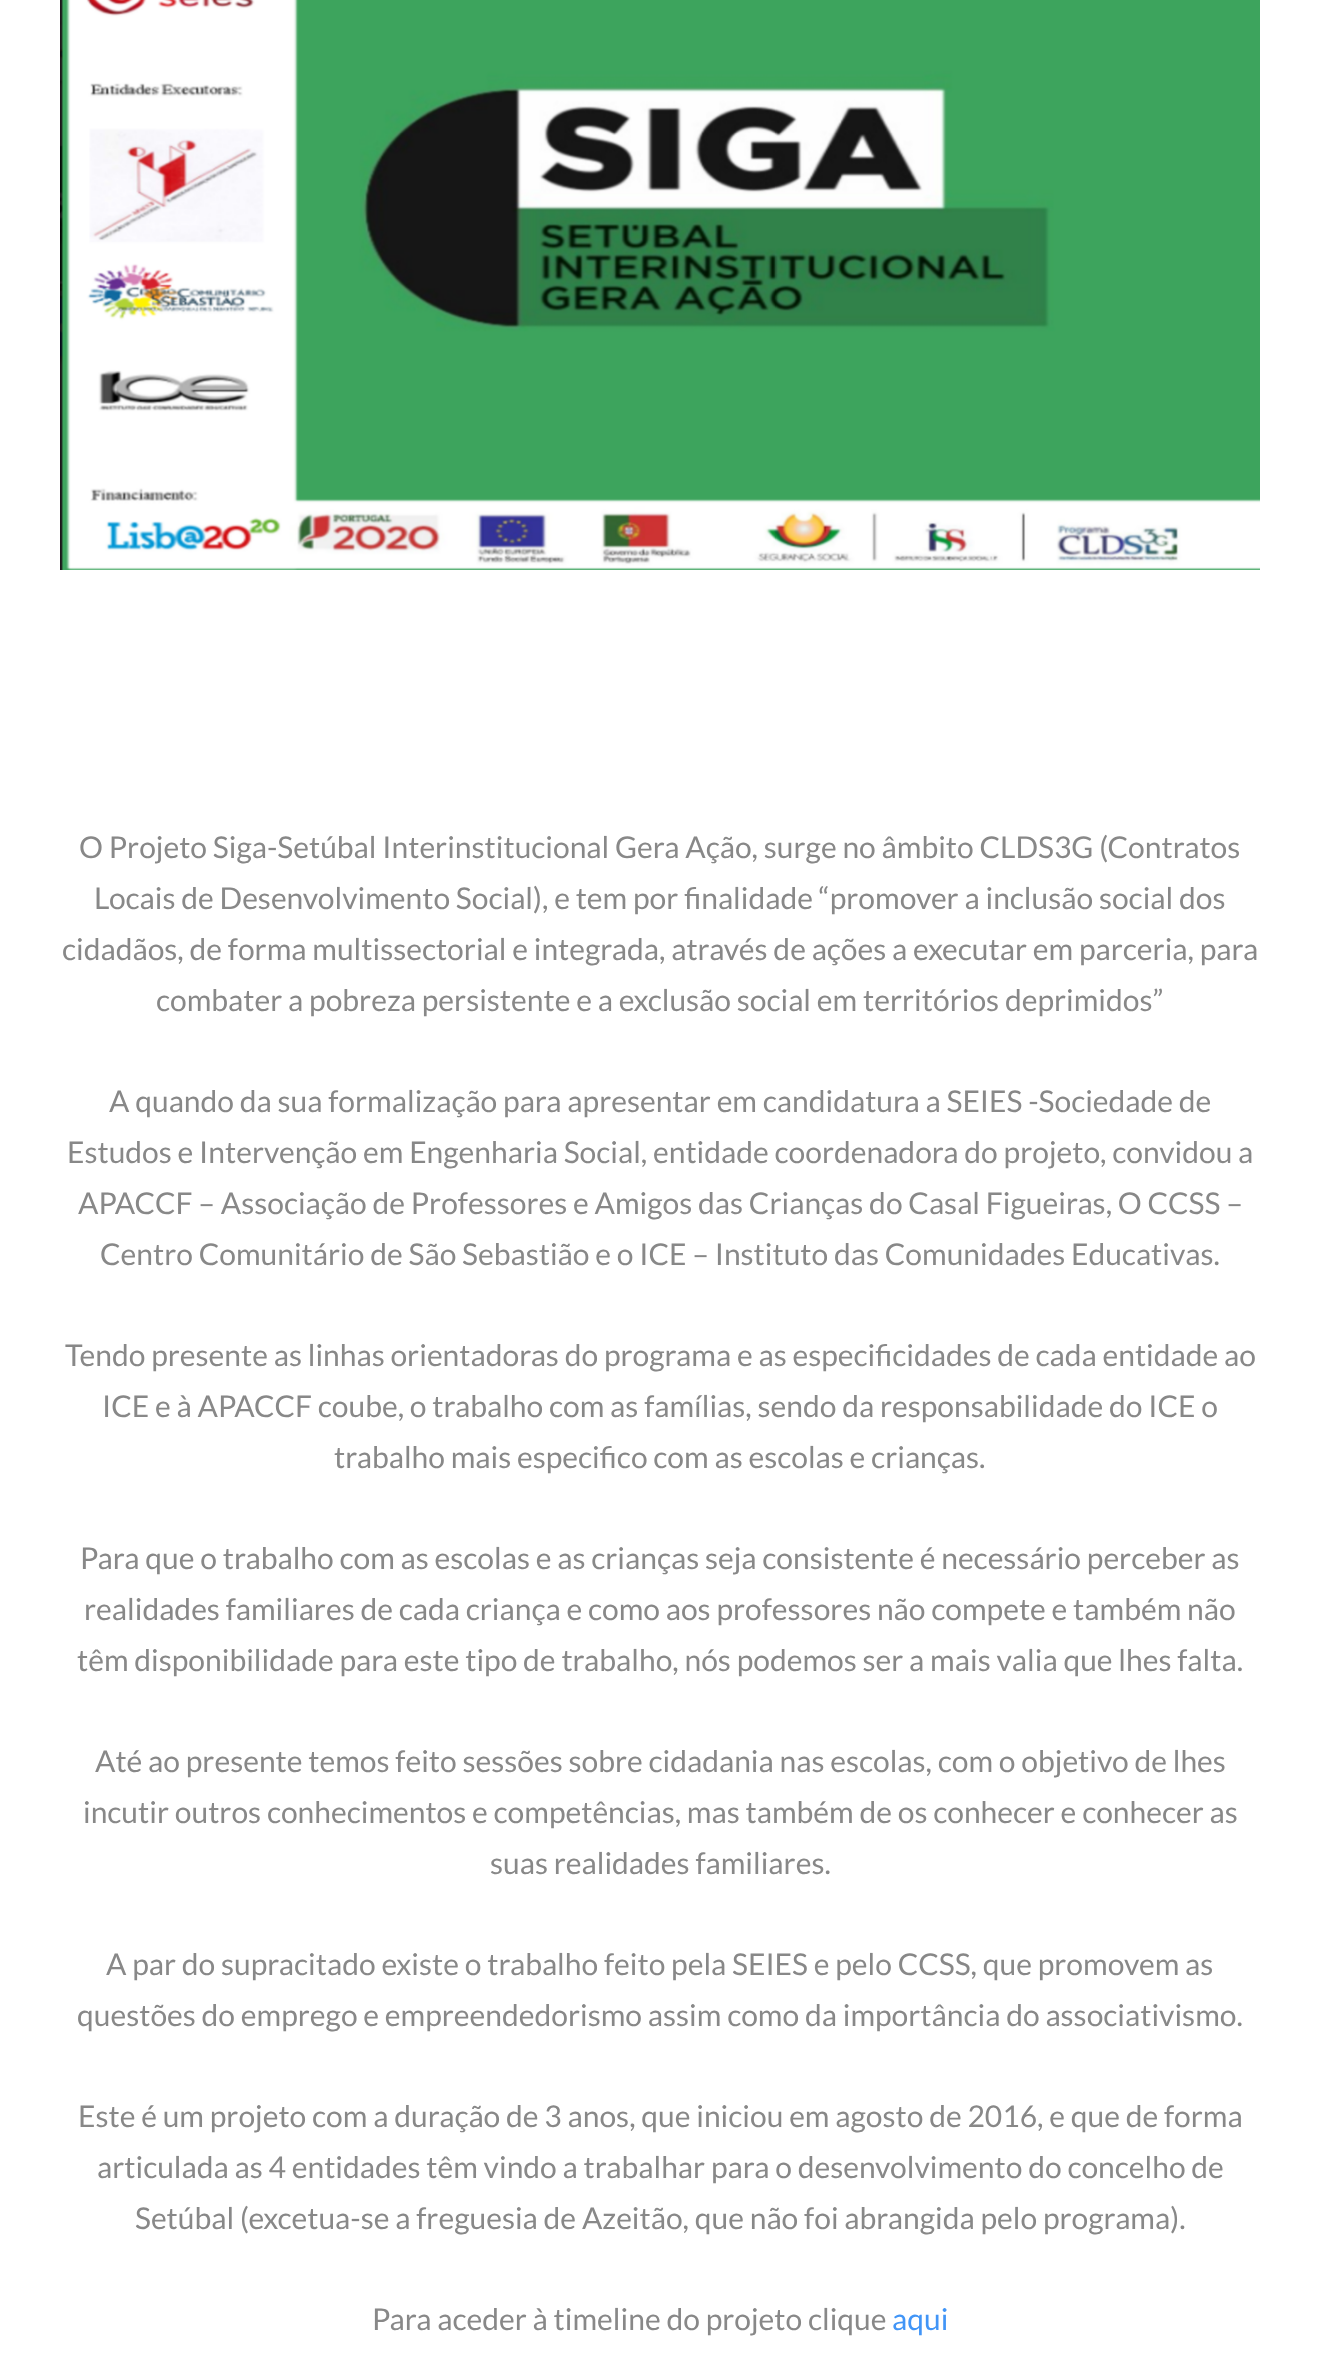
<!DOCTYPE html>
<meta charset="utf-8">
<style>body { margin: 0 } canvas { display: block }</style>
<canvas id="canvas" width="1320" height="2371"></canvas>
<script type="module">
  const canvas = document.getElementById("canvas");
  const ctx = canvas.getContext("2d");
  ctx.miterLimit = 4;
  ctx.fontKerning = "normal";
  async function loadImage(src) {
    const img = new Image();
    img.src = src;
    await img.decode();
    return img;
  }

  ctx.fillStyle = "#ffffff";
  ctx.fillRect(0, 0, 1320, 2371);
  ctx.drawImage(await loadImage("img1.png"), 60, 0, 1200, 570);
  ctx.font = "30px Lato";
  ctx.fillStyle = "#888888";
  ctx.fillText("O Projeto Siga-Setúbal Interinstitucional Gera Ação, surge no âmbito CLDS3G (Contratos", 79, 858);
  ctx.fillText("Locais de Desenvolvimento Social), e tem por finalidade “promover a inclusão social dos", 94, 909);
  ctx.fillText("cidadãos, de forma multissectorial e integrada, através de ações a executar em parceria, para", 62, 960);
  ctx.fillText("combater a pobreza persistente e a exclusão social em territórios deprimidos”", 156, 1011);
  ctx.fillText("A quando da sua formalização para apresentar em candidatura a SEIES -Sociedade de", 109, 1112);
  ctx.fillText("Estudos e Intervenção em Engenharia Social, entidade coordenadora do projeto, convidou a", 67, 1163);
  ctx.fillText("APACCF – Associação de Professores e Amigos das Crianças do Casal Figueiras, O CCSS –", 78, 1214);
  ctx.fillText("Centro Comunitário de São Sebastião e o ICE – Instituto das Comunidades Educativas.", 100, 1265);
  ctx.fillText("Tendo presente as linhas orientadoras do programa e as especificidades de cada entidade ao", 65, 1366);
  ctx.fillText("ICE e à APACCF coube, o trabalho com as famílias, sendo da responsabilidade do ICE o", 102, 1417);
  ctx.fillText("trabalho mais especifico com as escolas e crianças.", 334, 1468);
  ctx.fillText("Para que o trabalho com as escolas e as crianças seja consistente é necessário perceber as", 80, 1569);
  ctx.fillText("realidades familiares de cada criança e como aos professores não compete e também não", 84, 1620);
  ctx.fillText("têm disponibilidade para este tipo de trabalho, nós podemos ser a mais valia que lhes falta.", 77, 1671);
  ctx.fillText("Até ao presente temos feito sessões sobre cidadania nas escolas, com o objetivo de lhes", 95, 1772);
  ctx.fillText("incutir outros conhecimentos e competências, mas também de os conhecer e conhecer as", 83, 1823);
  ctx.fillText("suas realidades familiares.", 490, 1874);
  ctx.fillText("A par do supracitado existe o trabalho feito pela SEIES e pelo CCSS, que promovem as", 106, 1975);
  ctx.fillText("questões do emprego e empreendedorismo assim como da importância do associativismo.", 77, 2026);
  ctx.fillText("Este é um projeto com a duração de 3 anos, que iniciou em agosto de 2016, e que de forma", 78, 2127);
  ctx.fillText("articulada as 4 entidades têm vindo a trabalhar para o desenvolvimento do concelho de", 97, 2178);
  ctx.fillText("Setúbal (excetua-se a freguesia de Azeitão, que não foi abrangida pelo programa).", 135, 2229);
  ctx.fillText("Para aceder à timeline do projeto clique", 372, 2330);
  ctx.fillStyle = "#4195f7";
  ctx.fillText("aqui", 892, 2330);
</script>
